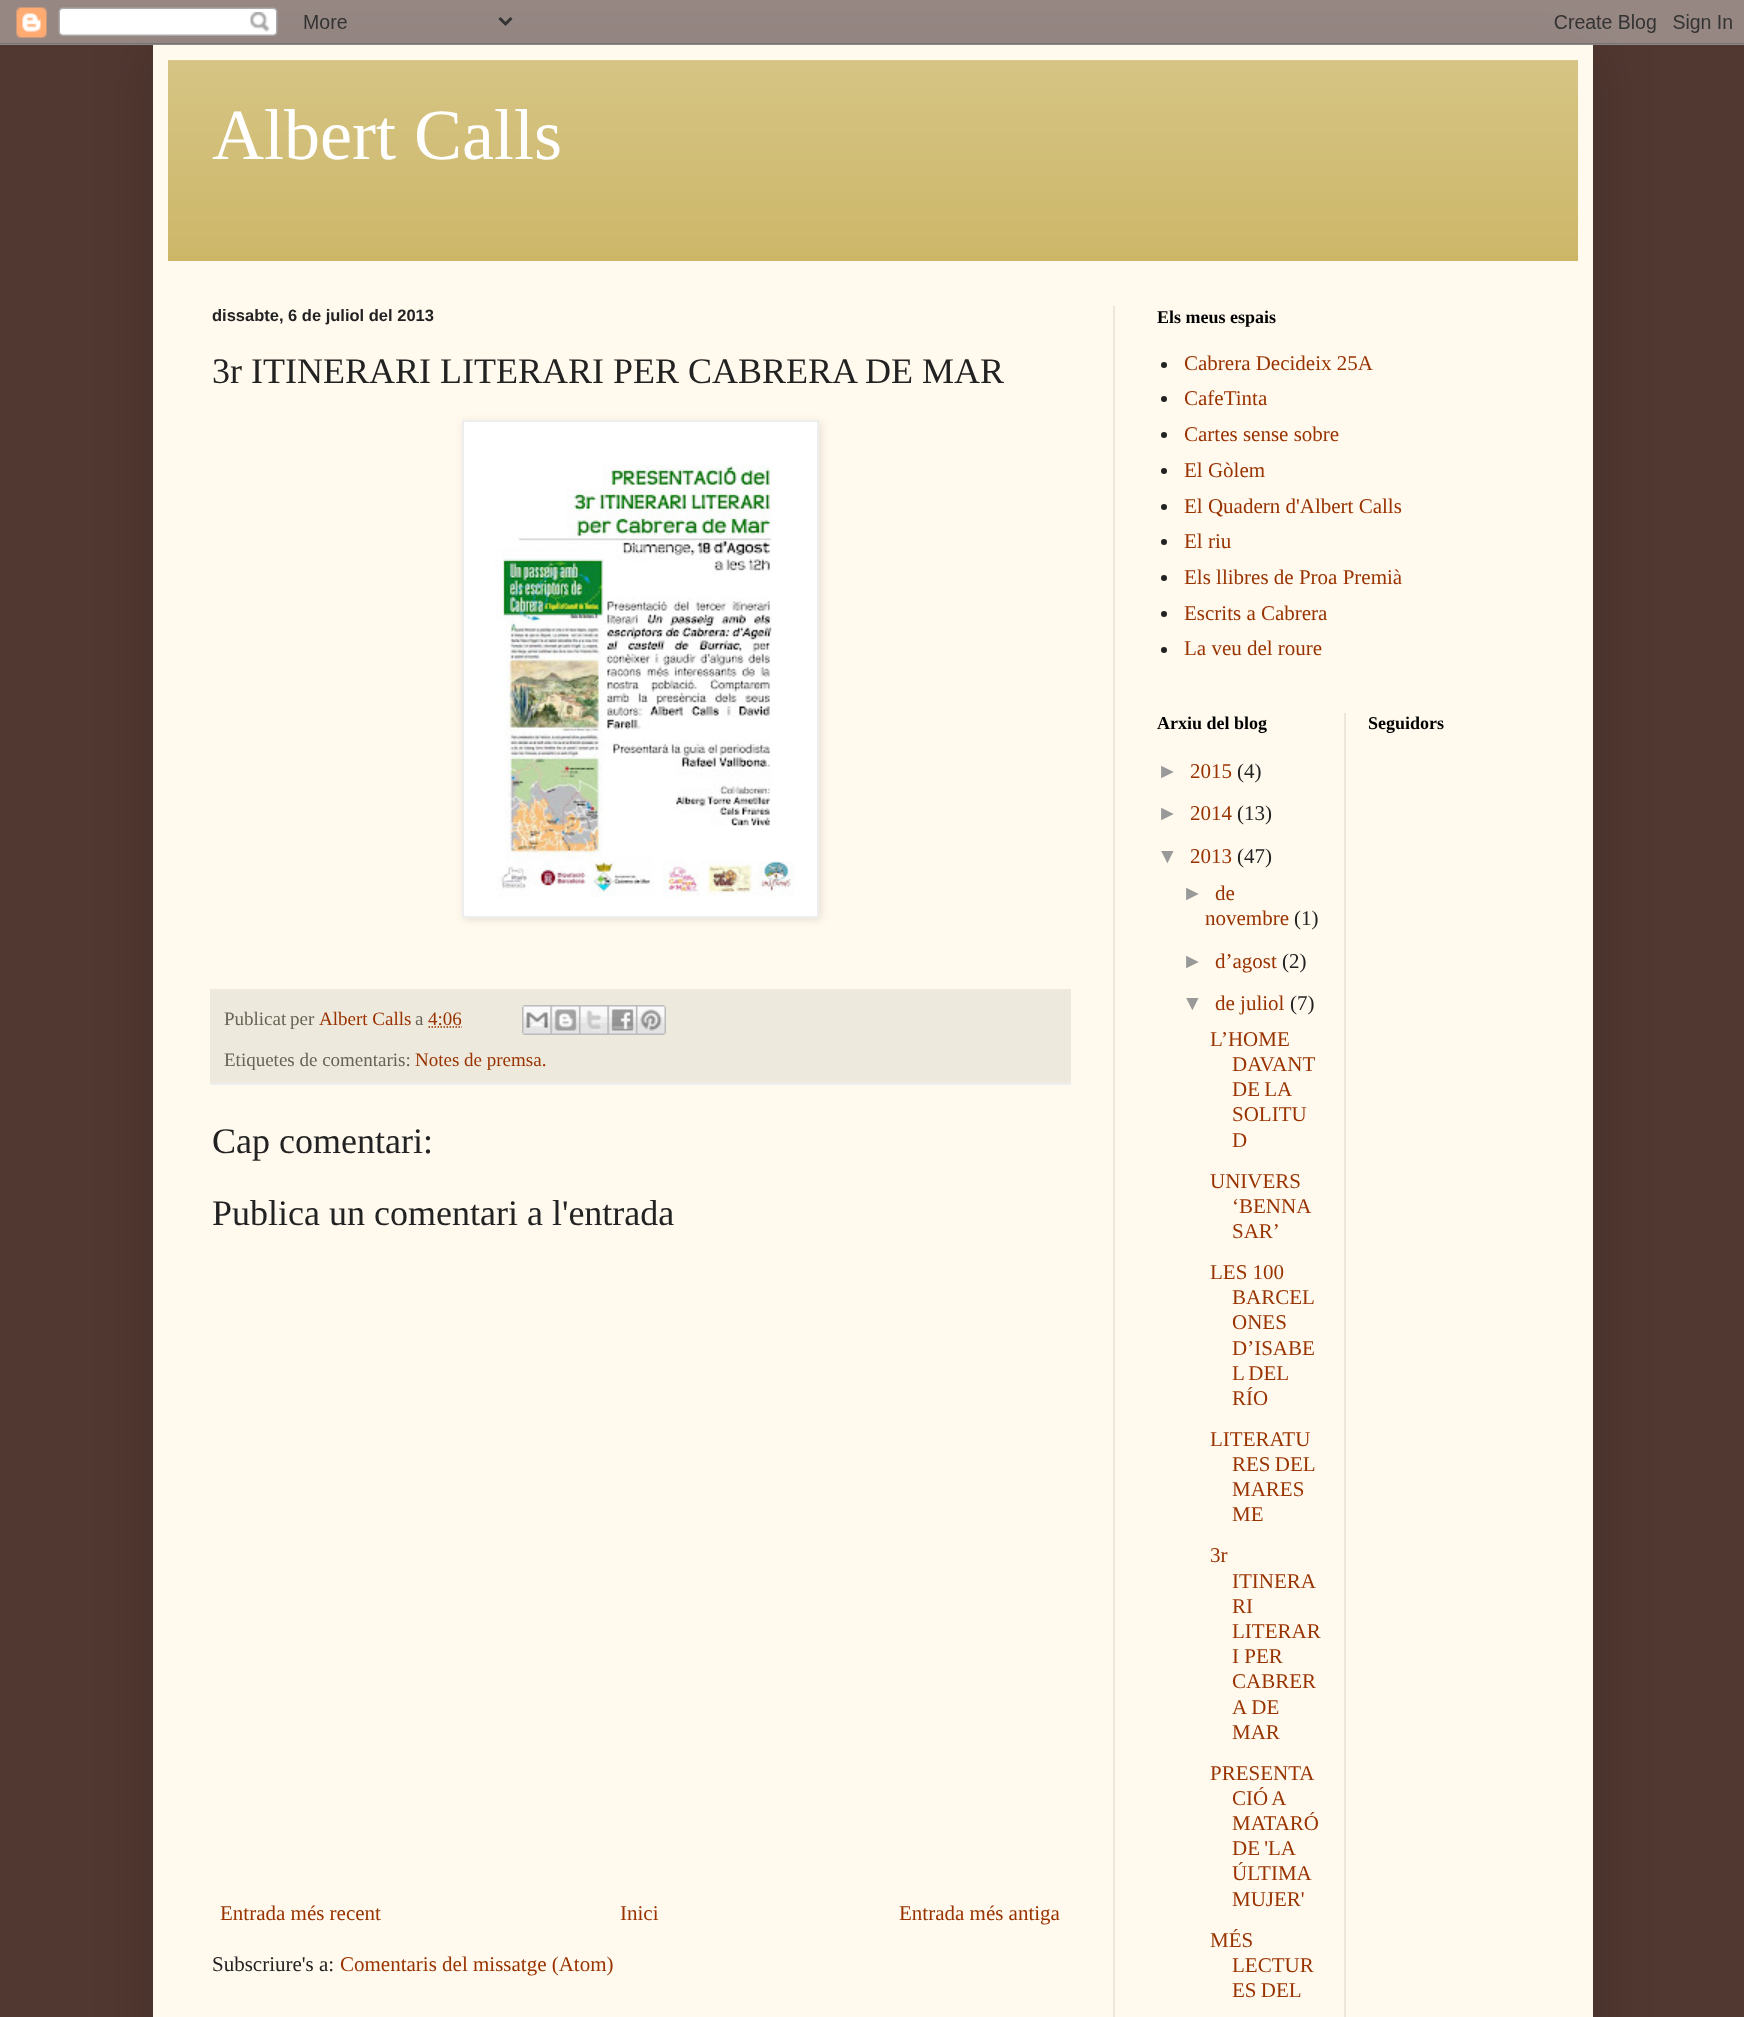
<!DOCTYPE html>
<meta charset="utf-8">
<style>body { margin: 0 } canvas { display: block }</style>
<canvas id="canvas" width="1744" height="2017"></canvas>
<script type="module">
  const canvas = document.getElementById("canvas");
  const ctx = canvas.getContext("2d");
  ctx.miterLimit = 4;
  ctx.fontKerning = "normal";
  async function loadImage(src) {
    const img = new Image();
    img.src = src;
    await img.decode();
    return img;
  }

  ctx.fillStyle = "#513831";
  ctx.fillRect(0, 0, 1744, 2017);
  ctx.fillStyle = "rgba(0, 0, 0, 0.15)";
  ctx.filter = "blur(30px)";
  ctx.beginPath();
  ctx.rect(153, 45, 1440, 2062);
  ctx.fill();
  ctx.filter = "none";
  ctx.drawImage(await loadImage("img1.png"), 0, 0, 1744, 45);
  ctx.fillStyle = "#fff9ee";
  ctx.fillRect(153, 45, 1440, 1972);
  ctx.fillStyle = "#ccb666";
  ctx.fillRect(168, 60, 1410, 201);
  ctx.drawImage(await loadImage("img2.png"), 168, 60, 1410, 195);
  ctx.font = "72px Liberation Serif";
  ctx.fillStyle = "#ffffff";
  ctx.fillText("Albert Calls", 212, 159);
  ctx.fillStyle = "#eee5dd";
  ctx.fillRect(1113, 306, 2, 1711);
  ctx.font = "bold 16.5px Liberation Sans";
  ctx.fillStyle = "#222222";
  ctx.fillText("dissabte, 6 de juliol del 2013", 212, 321);
  ctx.font = "36px Liberation Serif";
  ctx.fillText("3r ITINERARI LITERARI PER CABRERA DE MAR", 212, 383);
  ctx.fillStyle = "rgba(0, 0, 0, 0.1)";
  ctx.filter = "blur(4px)";
  ctx.beginPath();
  ctx.rect(464, 422, 357, 498);
  ctx.fill();
  ctx.filter = "none";
  ctx.fillStyle = "#ffffff";
  ctx.beginPath();
  ctx.rect(463, 421, 355, 496);
  ctx.fill();
  ctx.strokeStyle = "#eeeeee";
  ctx.lineWidth = 2;
  ctx.stroke();
  ctx.drawImage(await loadImage("img3.png"), 495, 465, 300, 432);
  ctx.fillStyle = "#eee9dd";
  ctx.fillRect(210, 989, 861, 94);
  ctx.fillStyle = "#eeeeee";
  ctx.fillRect(210, 1083, 861, 2);
  ctx.wordSpacing = "-1px";
  ctx.font = "19px Liberation Serif";
  ctx.fillStyle = "#666555";
  ctx.fillText("Publicat per", 224, 1025);
  ctx.wordSpacing = "0px";
  ctx.fillStyle = "#993300";
  ctx.fillText("Albert Calls", 319, 1025);
  ctx.fillStyle = "#666555";
  ctx.fillText("a", 415, 1025);
  ctx.beginPath();
  ctx.moveTo(428.5, 1027);
  ctx.lineTo(462, 1027);
  ctx.strokeStyle = "#993300";
  ctx.lineWidth = 1.5;
  ctx.setLineDash([1.5, 1.5]);
  ctx.stroke();
  ctx.fillStyle = "#993300";
  ctx.fillText("4:06", 428, 1025);
  ctx.drawImage(await loadImage("img4.png"), 522, 1005, 29, 30);
  ctx.drawImage(await loadImage("img5.png"), 550, 1005, 29, 30);
  ctx.drawImage(await loadImage("img6.png"), 579, 1005, 29, 30);
  ctx.drawImage(await loadImage("img7.png"), 607, 1005, 29, 30);
  ctx.drawImage(await loadImage("img8.png"), 636, 1005, 30, 30);
  ctx.fillStyle = "#666555";
  ctx.fillText("Etiquetes de comentaris:", 224, 1066);
  ctx.fillStyle = "#993300";
  ctx.fillText("Notes de premsa.", 415, 1066);
  ctx.font = "36px Liberation Serif";
  ctx.fillStyle = "#222222";
  ctx.fillText("Cap comentari:", 212, 1153);
  ctx.fillText("Publica un comentari a l'entrada", 212, 1225);
  ctx.font = "21px Liberation Serif";
  ctx.fillStyle = "#993300";
  ctx.fillText("Entrada més recent", 220, 1920);
  ctx.fillText("Inici", 620, 1920);
  ctx.fillText("Entrada més antiga", 899, 1920);
  ctx.fillStyle = "#222222";
  ctx.fillText("Subscriure's a:", 212, 1971);
  ctx.fillStyle = "#993300";
  ctx.fillText("Comentaris del missatge (Atom)", 340, 1971);
  ctx.font = "bold 18px Liberation Serif";
  ctx.fillStyle = "#000000";
  ctx.fillText("Els meus espais", 1157, 323);
  ctx.fillStyle = "#222222";
  ctx.beginPath();
  ctx.arc(1164, 365, 3, 0, Math.PI * 2);
  ctx.fill();
  ctx.font = "21px Liberation Serif";
  ctx.fillStyle = "#993300";
  ctx.fillText("Cabrera Decideix 25A", 1184, 370);
  ctx.fillStyle = "#222222";
  ctx.beginPath();
  ctx.arc(1164, 399, 3, 0, Math.PI * 2);
  ctx.fill();
  ctx.fillStyle = "#993300";
  ctx.fillText("CafeTinta", 1184, 405);
  ctx.fillStyle = "#222222";
  ctx.beginPath();
  ctx.arc(1164, 435, 3, 0, Math.PI * 2);
  ctx.fill();
  ctx.fillStyle = "#993300";
  ctx.fillText("Cartes sense sobre", 1184, 441);
  ctx.fillStyle = "#222222";
  ctx.beginPath();
  ctx.arc(1164, 471, 3, 0, Math.PI * 2);
  ctx.fill();
  ctx.fillStyle = "#993300";
  ctx.fillText("El Gòlem", 1184, 477);
  ctx.fillStyle = "#222222";
  ctx.beginPath();
  ctx.arc(1164, 507, 3, 0, Math.PI * 2);
  ctx.fill();
  ctx.fillStyle = "#993300";
  ctx.fillText("El Quadern d'Albert Calls", 1184, 513);
  ctx.fillStyle = "#222222";
  ctx.beginPath();
  ctx.arc(1164, 542, 3, 0, Math.PI * 2);
  ctx.fill();
  ctx.fillStyle = "#993300";
  ctx.fillText("El riu", 1184, 548);
  ctx.fillStyle = "#222222";
  ctx.beginPath();
  ctx.arc(1164, 578, 3, 0, Math.PI * 2);
  ctx.fill();
  ctx.fillStyle = "#993300";
  ctx.fillText("Els llibres de Proa Premià", 1184, 584);
  ctx.fillStyle = "#222222";
  ctx.beginPath();
  ctx.arc(1164, 614, 3, 0, Math.PI * 2);
  ctx.fill();
  ctx.fillStyle = "#993300";
  ctx.fillText("Escrits a Cabrera", 1184, 620);
  ctx.fillStyle = "#222222";
  ctx.beginPath();
  ctx.arc(1164, 650, 3, 0, Math.PI * 2);
  ctx.fill();
  ctx.fillStyle = "#993300";
  ctx.fillText("La veu del roure", 1184, 655);
  ctx.font = "bold 18px Liberation Serif";
  ctx.fillStyle = "#000000";
  ctx.fillText("Arxiu del blog", 1157, 729);
  ctx.font = "21px Liberation Sans";
  ctx.fillStyle = "#999999";
  ctx.fillText("►", 1157, 778);
  ctx.font = "21px Liberation Serif";
  ctx.fillStyle = "#993300";
  ctx.fillText("2015", 1190, 778);
  ctx.fillStyle = "#222222";
  ctx.fillText("(4)", 1237, 778);
  ctx.font = "21px Liberation Sans";
  ctx.fillStyle = "#999999";
  ctx.fillText("►", 1157, 820);
  ctx.font = "21px Liberation Serif";
  ctx.fillStyle = "#993300";
  ctx.fillText("2014", 1190, 820);
  ctx.fillStyle = "#222222";
  ctx.fillText("(13)", 1237, 820);
  ctx.font = "21px Liberation Sans";
  ctx.fillStyle = "#999999";
  ctx.fillText("▼", 1157, 863);
  ctx.font = "21px Liberation Serif";
  ctx.fillStyle = "#993300";
  ctx.fillText("2013", 1190, 863);
  ctx.fillStyle = "#222222";
  ctx.fillText("(47)", 1237, 863);
  ctx.font = "21px Liberation Sans";
  ctx.fillStyle = "#999999";
  ctx.fillText("►", 1182, 900);
  ctx.font = "21px Liberation Serif";
  ctx.fillStyle = "#993300";
  ctx.fillText("de", 1215, 900);
  ctx.fillText("novembre", 1205, 925);
  ctx.fillStyle = "#222222";
  ctx.fillText("(1)", 1294, 925);
  ctx.font = "21px Liberation Sans";
  ctx.fillStyle = "#999999";
  ctx.fillText("►", 1182, 968);
  ctx.font = "21px Liberation Serif";
  ctx.fillStyle = "#993300";
  ctx.fillText("d’agost", 1215, 968);
  ctx.fillStyle = "#222222";
  ctx.fillText("(2)", 1282, 968);
  ctx.font = "21px Liberation Sans";
  ctx.fillStyle = "#999999";
  ctx.fillText("▼", 1182, 1010);
  ctx.font = "21px Liberation Serif";
  ctx.fillStyle = "#993300";
  ctx.fillText("de juliol", 1215, 1010);
  ctx.fillStyle = "#222222";
  ctx.fillText("(7)", 1290, 1010);
  ctx.fillStyle = "#993300";
  ctx.fillText("L’HOME", 1210, 1046);
  ctx.fillText("DAVANT", 1232, 1071);
  ctx.wordSpacing = "-1px";
  ctx.fillText("DE LA", 1232, 1096);
  ctx.wordSpacing = "0px";
  ctx.fillText("SOLITU", 1232, 1121);
  ctx.fillText("D", 1232, 1147);
  ctx.fillText("UNIVERS", 1210, 1188);
  ctx.fillText("‘BENNA", 1232, 1213);
  ctx.fillText("SAR’", 1232, 1238);
  ctx.fillText("LES 100", 1210, 1279);
  ctx.fillText("BARCEL", 1232, 1304);
  ctx.fillText("ONES", 1232, 1329);
  ctx.fillText("D’ISABE", 1232, 1355);
  ctx.wordSpacing = "-1px";
  ctx.fillText("L DEL", 1232, 1380);
  ctx.wordSpacing = "0px";
  ctx.fillText("RÍO", 1232, 1405);
  ctx.fillText("LITERATU", 1210, 1446);
  ctx.wordSpacing = "-1px";
  ctx.fillText("RES DEL", 1232, 1471);
  ctx.wordSpacing = "0px";
  ctx.fillText("MARES", 1232, 1496);
  ctx.fillText("ME", 1232, 1521);
  ctx.fillText("3r", 1210, 1562);
  ctx.fillText("ITINERA", 1232, 1588);
  ctx.fillText("RI", 1232, 1613);
  ctx.fillText("LITERAR", 1232, 1638);
  ctx.fillText("I PER", 1232, 1663);
  ctx.fillText("CABRER", 1232, 1688);
  ctx.fillText("A DE", 1232, 1714);
  ctx.fillText("MAR", 1232, 1739);
  ctx.fillText("PRESENTA", 1210, 1780);
  ctx.wordSpacing = "-1px";
  ctx.fillText("CIÓ A", 1232, 1805);
  ctx.wordSpacing = "0px";
  ctx.fillText("MATARÓ", 1232, 1830);
  ctx.wordSpacing = "-1px";
  ctx.fillText("DE 'LA", 1232, 1855);
  ctx.wordSpacing = "0px";
  ctx.fillText("ÚLTIMA", 1232, 1880);
  ctx.fillText("MUJER'", 1232, 1906);
  ctx.fillText("MÉS", 1210, 1947);
  ctx.fillText("LECTUR", 1232, 1972);
  ctx.wordSpacing = "-1px";
  ctx.fillText("ES DEL", 1232, 1997);
  ctx.fillStyle = "#eee5dd";
  ctx.fillRect(1344, 713, 2, 1304);
  ctx.wordSpacing = "0px";
  ctx.font = "bold 18px Liberation Serif";
  ctx.fillStyle = "#000000";
  ctx.fillText("Seguidors", 1368, 729);
</script>
